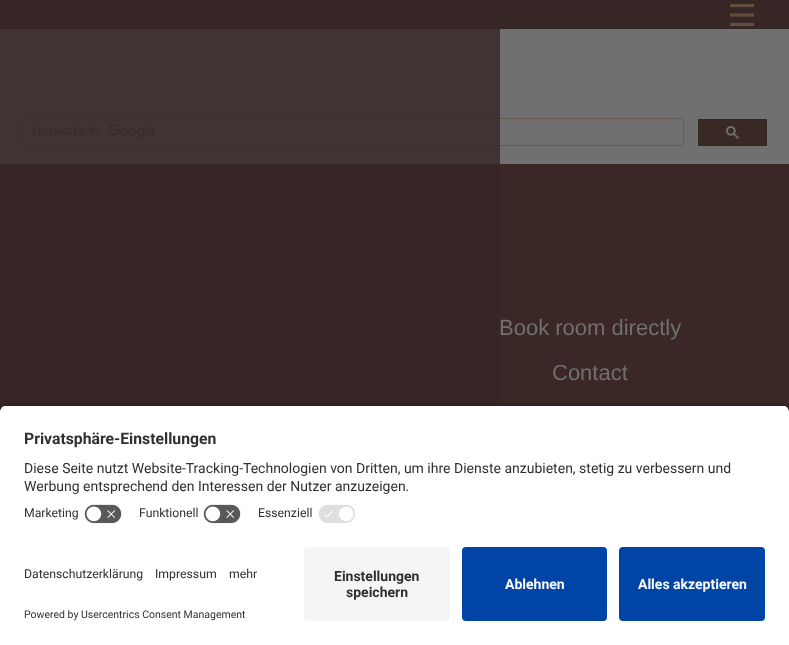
<!DOCTYPE html>
<meta charset="utf-8">
<style>body { margin: 0 } canvas { display: block }</style>
<canvas id="canvas" width="789" height="645"></canvas>
<script type="module">
  const canvas = document.getElementById("canvas");
  const ctx = canvas.getContext("2d");
  ctx.miterLimit = 4;
  ctx.fontKerning = "normal";
  async function loadImage(src) {
    const img = new Image();
    img.src = src;
    await img.decode();
    return img;
  }

  ctx.fillStyle = "#707070";
  ctx.fillRect(0, 0, 789, 645);
  ctx.fillStyle = "#362726";
  ctx.fillRect(0, 0, 789, 29);
  ctx.drawImage(await loadImage("img1.png"), 730, 4, 24, 22);
  ctx.strokeStyle = "#635c54";
  ctx.strokeRect(22.5, 118.5, 661, 27);
  ctx.drawImage(await loadImage("img2.png"), 32, 124, 123, 15);
  ctx.fillStyle = "#3a2726";
  ctx.fillRect(0, 164, 789, 249);
  ctx.fillStyle = "rgba(54, 39, 38, 0.83)";
  ctx.fillRect(0, 29, 500, 384);
  ctx.fillStyle = "#392924";
  ctx.beginPath();
  ctx.rect(698.5, 119.5, 68, 26);
  ctx.fill();
  ctx.strokeStyle = "#322824";
  ctx.stroke();
  ctx.drawImage(await loadImage("img3.png"), 726, 126, 13, 13);
  ctx.font = "22px Liberation Sans";
  ctx.fillStyle = "#707070";
  ctx.fillText("Book room directly", 499, 335);
  ctx.fillText("Contact", 552, 380);
  ctx.fillStyle = "rgba(0, 0, 0, 0.8)";
  ctx.filter = "blur(3.5px)";
  ctx.beginPath();
  ctx.roundRect(0, 408, 789, 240, 8);
  ctx.fill();
  ctx.filter = "none";
  ctx.save();
  ctx.beginPath();
  ctx.roundRect(0, 405, 789, 134, [8, 8, 0, 0]);
  ctx.clip();
  ctx.fillStyle = "#ffffff";
  ctx.fillRect(0, 406, 789, 133);
  ctx.fillRect(0, 406, 789, 93);
  ctx.restore();
  ctx.font = "bold 15.75px Roboto";
  ctx.fillStyle = "#303030";
  ctx.fillText("Privatsphäre-Einstellungen", 24, 444);
  ctx.font = "14px Roboto";
  ctx.fillText("Diese Seite nutzt Website-Tracking-Technologien von Dritten, um ihre Dienste anzubieten, stetig zu verbessern und", 24, 473);
  ctx.fillText("Werbung entsprechend den Interessen der Nutzer anzuzeigen.", 24, 491);
  ctx.font = "12.25px Roboto";
  ctx.fillText("Marketing", 24, 517);
  ctx.drawImage(await loadImage("img4.png"), 84, 504, 38, 20);
  ctx.fillText("Funktionell", 139, 517);
  ctx.drawImage(await loadImage("img4.png"), 203, 504, 38, 20);
  ctx.fillText("Essenziell", 258, 517);
  ctx.drawImage(await loadImage("img5.png"), 318, 504, 38, 19);
  ctx.fillStyle = "#ffffff";
  ctx.fillRect(0, 539, 789, 106);
  ctx.fillStyle = "#303030";
  ctx.fillText("Datenschutzerklärung", 24, 578);
  ctx.fillText("Impressum", 155, 578);
  ctx.fillText("mehr", 229, 578);
  ctx.font = "10.5px Roboto";
  ctx.fillText("Powered by Usercentrics Consent Management", 24, 618);
  ctx.fillStyle = "#f5f5f5";
  ctx.beginPath();
  ctx.roundRect(304, 547, 146, 74, 4);
  ctx.fill();
  ctx.font = "bold 14px Roboto";
  ctx.fillStyle = "#303030";
  ctx.fillText("Einstellungen", 334, 581);
  ctx.fillText("speichern", 346, 597);
  ctx.fillStyle = "#0045a5";
  ctx.beginPath();
  ctx.roundRect(462, 547, 145, 74, 4);
  ctx.fill();
  ctx.fillStyle = "#fafafa";
  ctx.fillText("Ablehnen", 505, 589);
  ctx.fillStyle = "#0045a5";
  ctx.beginPath();
  ctx.roundRect(619, 547, 146, 74, 4);
  ctx.fill();
  ctx.fillStyle = "#fafafa";
  ctx.fillText("Alles akzeptieren", 638, 589);
</script>
